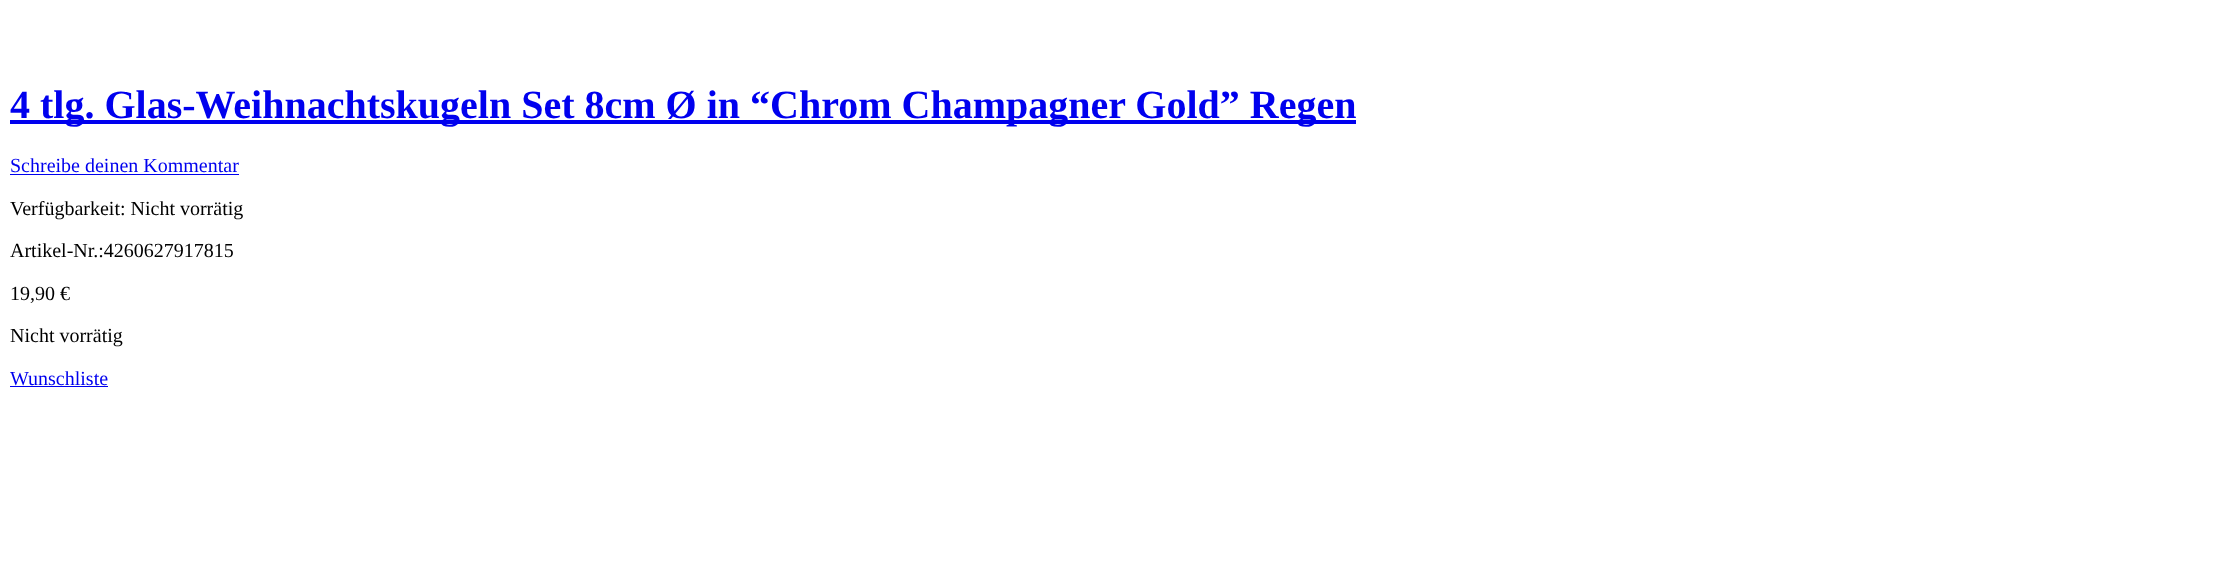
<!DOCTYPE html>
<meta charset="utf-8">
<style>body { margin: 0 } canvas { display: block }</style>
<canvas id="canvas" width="2224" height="569"></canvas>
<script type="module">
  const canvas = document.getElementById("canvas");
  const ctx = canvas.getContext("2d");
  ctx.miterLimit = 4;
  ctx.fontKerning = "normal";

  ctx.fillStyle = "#ffffff";
  ctx.fillRect(0, 0, 2224, 569);
  ctx.fillStyle = "#0000ee";
  ctx.fillRect(10, 120, 1346, 4);
  ctx.font = "bold 40px Liberation Serif";
  ctx.fillText("4 tlg. Glas-Weihnachtskugeln Set 8cm Ø in “Chrom Champagner Gold” Regen", 10, 118);
  ctx.font = "20px Liberation Serif";
  ctx.fillText("Schreibe deinen Kommentar", 10, 172);
  ctx.fillRect(10, 174, 229, 1);
  ctx.fillStyle = "#000000";
  ctx.fillText("Verfügbarkeit: Nicht vorrätig", 10, 215);
  ctx.fillText("Artikel-Nr.:4260627917815", 10, 257);
  ctx.fillText("19,90 €", 10, 300);
  ctx.fillText("Nicht vorrätig", 10, 342);
  ctx.fillStyle = "#0000ee";
  ctx.fillText("Wunschliste", 10, 385);
  ctx.fillRect(10, 386, 98, 1);
</script>
